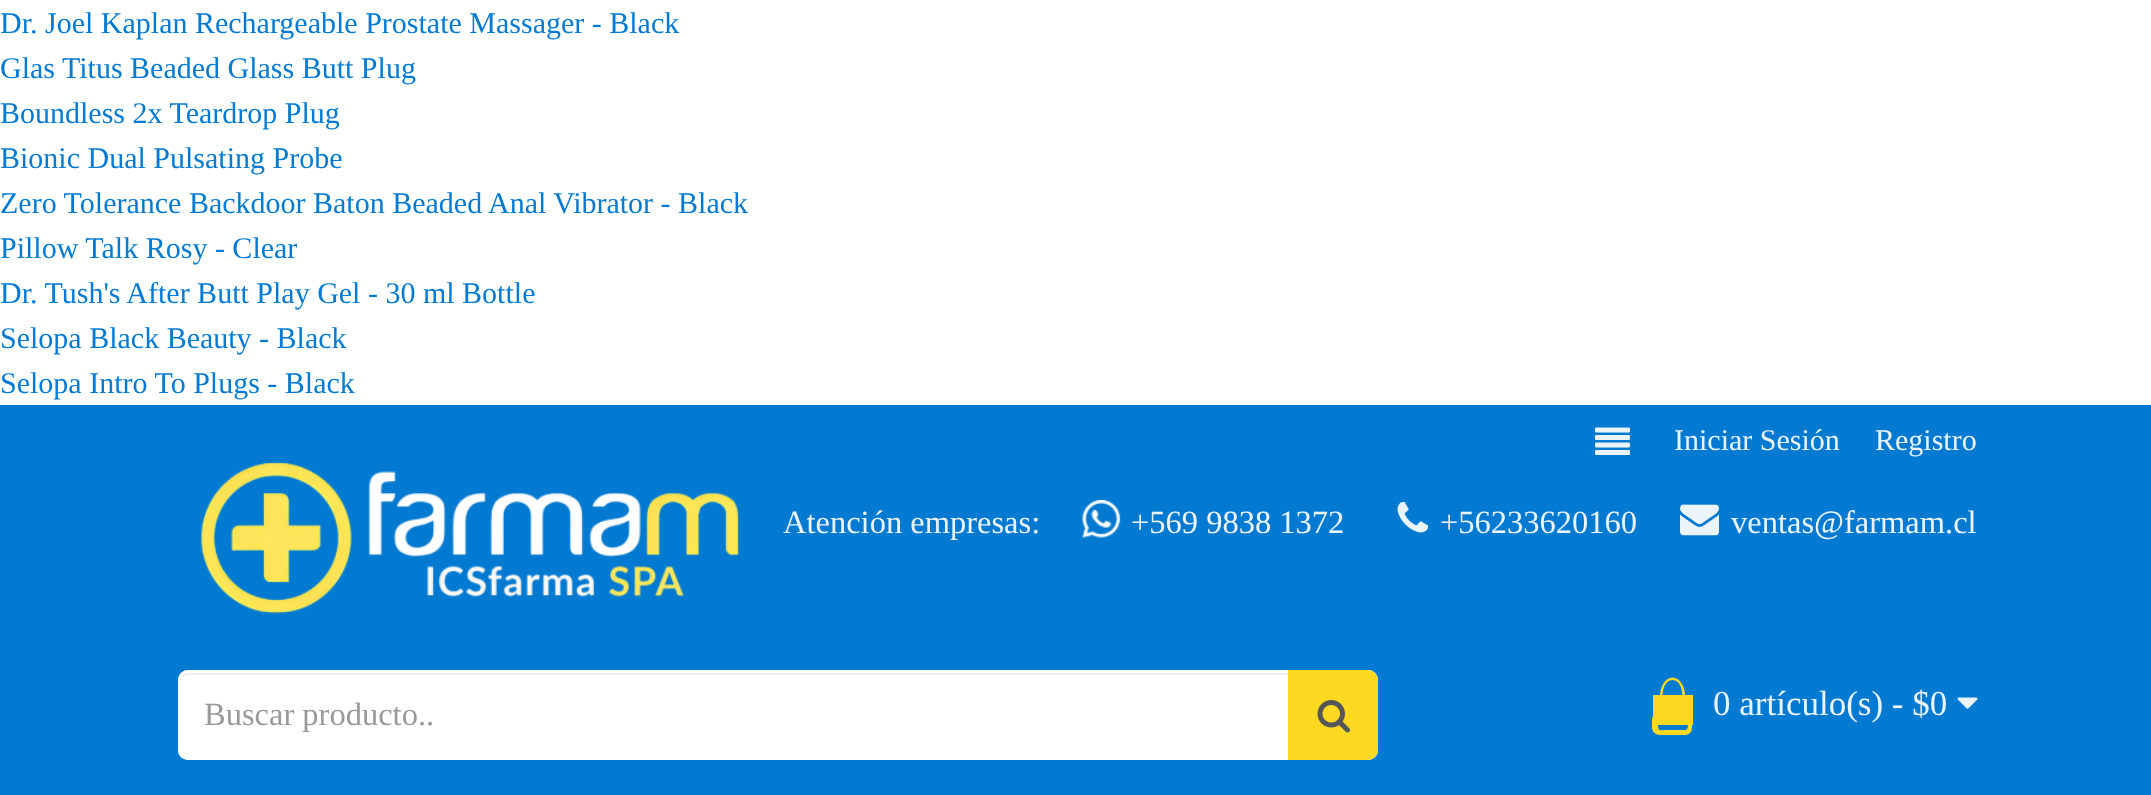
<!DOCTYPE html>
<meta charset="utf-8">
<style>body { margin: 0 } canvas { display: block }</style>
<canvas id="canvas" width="2151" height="795"></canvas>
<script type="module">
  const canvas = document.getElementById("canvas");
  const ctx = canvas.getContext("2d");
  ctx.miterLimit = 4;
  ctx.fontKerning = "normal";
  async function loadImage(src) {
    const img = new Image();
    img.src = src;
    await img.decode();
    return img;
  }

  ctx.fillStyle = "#ffffff";
  ctx.fillRect(0, 0, 2151, 795);
  ctx.font = "30px Liberation Serif";
  ctx.fillStyle = "#037ad1";
  ctx.fillText("Dr. Joel Kaplan Rechargeable Prostate Massager - Black", 0, 33);
  ctx.fillText("Glas Titus Beaded Glass Butt Plug", 0, 78);
  ctx.fillText("Boundless 2x Teardrop Plug", 0, 123);
  ctx.fillText("Bionic Dual Pulsating Probe", 0, 168);
  ctx.fillText("Zero Tolerance Backdoor Baton Beaded Anal Vibrator - Black", 0, 213);
  ctx.fillText("Pillow Talk Rosy - Clear", 0, 258);
  ctx.fillText("Dr. Tush's After Butt Play Gel - 30 ml Bottle", 0, 303);
  ctx.fillText("Selopa Black Beauty - Black", 0, 348);
  ctx.fillText("Selopa Intro To Plugs - Black", 0, 393);
  ctx.fillRect(0, 405, 2151, 390);
  ctx.drawImage(await loadImage("img1.png"), 1595, 427, 35, 28);
  ctx.fillStyle = "#ebf4fb";
  ctx.fillText("Iniciar Sesión", 1674, 450);
  ctx.fillText("Registro", 1875, 450);
  ctx.drawImage(await loadImage("img2.png"), 200, 462, 540, 152);
  ctx.font = "32.5px Liberation Serif";
  ctx.fillText("Atención empresas:", 783, 533);
  ctx.drawImage(await loadImage("img3.png"), 1082, 500, 39, 38);
  ctx.fillText("+569 9838 1372", 1131, 533);
  ctx.drawImage(await loadImage("img4.png"), 1397, 501, 32, 32);
  ctx.fillText("+56233620160", 1440, 533);
  ctx.drawImage(await loadImage("img5.png"), 1680, 504, 39, 32);
  ctx.fillText("ventas@farmam.cl", 1731, 533);
  ctx.fillStyle = "#ffffff";
  ctx.beginPath();
  ctx.roundRect(178, 670, 1200, 90, 10);
  ctx.fill();
  ctx.fillStyle = "#ececec";
  ctx.beginPath();
  ctx.moveTo(188, 675);
  ctx.lineTo(1368, 675);
  ctx.bezierCurveTo(1372, 675, 1375, 678, 1375, 682);
  ctx.lineTo(1375, 681);
  ctx.bezierCurveTo(1375, 677, 1371, 673, 1367, 673);
  ctx.lineTo(188, 673);
  ctx.bezierCurveTo(184, 673, 180, 677, 180, 681);
  ctx.lineTo(180, 682);
  ctx.bezierCurveTo(180, 678, 183, 675, 188, 675);
  ctx.closePath();
  ctx.fill();
  ctx.beginPath();
  ctx.roundRect(179.5, 671.5, 1197, 87, 8.5);
  ctx.strokeStyle = "#ffffff";
  ctx.lineWidth = 3;
  ctx.stroke();
  ctx.save();
  ctx.beginPath();
  ctx.rect(205, 695, 1080, 40);
  ctx.clip();
  ctx.fillStyle = "#999999";
  ctx.fillText("Buscar producto..", 204, 725);
  ctx.restore();
  ctx.fillStyle = "#fdd922";
  ctx.beginPath();
  ctx.roundRect(1288, 670, 90, 90, [0, 10, 10, 0]);
  ctx.fill();
  ctx.drawImage(await loadImage("img6.png"), 1317, 700, 33, 33);
  ctx.fillRect(1653, 695, 40, 30);
  ctx.beginPath();
  ctx.moveTo(1672.5, 677.5);
  ctx.bezierCurveTo(1679.5, 677.5, 1685, 686, 1685, 696);
  ctx.bezierCurveTo(1685, 706.5, 1679.5, 715, 1672.5, 715);
  ctx.bezierCurveTo(1665.5, 715, 1660, 706.5, 1660, 696);
  ctx.bezierCurveTo(1660, 686, 1665.5, 677.5, 1672.5, 677.5);
  ctx.closePath();
  ctx.moveTo(1672.5, 680);
  ctx.bezierCurveTo(1686.5, 680, 1685, 715, 1672.5, 715);
  ctx.bezierCurveTo(1660, 715, 1658.5, 680, 1672.5, 680);
  ctx.closePath();
  ctx.fill("evenodd");
  ctx.beginPath();
  ctx.moveTo(1660, 712);
  ctx.lineTo(1685, 712);
  ctx.bezierCurveTo(1689, 712, 1692, 716, 1692, 720);
  ctx.lineTo(1692, 728);
  ctx.bezierCurveTo(1692, 732, 1689, 735, 1685, 735);
  ctx.lineTo(1660, 735);
  ctx.bezierCurveTo(1656, 735, 1652, 732, 1652, 728);
  ctx.lineTo(1652, 720);
  ctx.bezierCurveTo(1652, 716, 1656, 712, 1660, 712);
  ctx.closePath();
  ctx.moveTo(1660, 712);
  ctx.lineTo(1677, 712);
  ctx.bezierCurveTo(1685, 712, 1687, 711, 1688, 720);
  ctx.bezierCurveTo(1688, 722, 1689, 730, 1685, 730);
  ctx.lineTo(1668, 730);
  ctx.bezierCurveTo(1659, 730, 1658, 732, 1658, 723);
  ctx.bezierCurveTo(1658, 721, 1657, 712, 1660, 712);
  ctx.closePath();
  ctx.fill("evenodd");
  ctx.font = "35px Liberation Serif";
  ctx.fillStyle = "#ebf4fb";
  ctx.fillText("0 artículo(s) - $0", 1713, 715);
  ctx.drawImage(await loadImage("img7.png"), 1957, 697, 21, 12);
</script>
